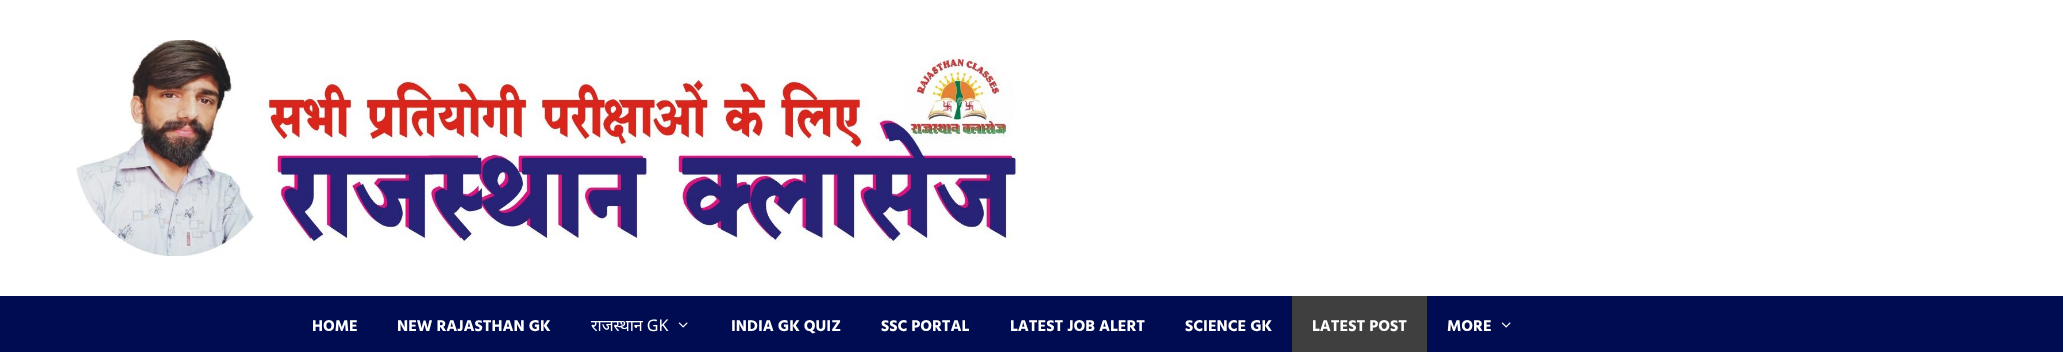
<!DOCTYPE html>
<meta charset="utf-8">
<style>body { margin: 0 } canvas { display: block }</style>
<canvas id="canvas" width="2063" height="352"></canvas>
<script type="module">
  const canvas = document.getElementById("canvas");
  const ctx = canvas.getContext("2d");
  ctx.miterLimit = 4;
  ctx.fontKerning = "normal";
  async function loadImage(src) {
    const img = new Image();
    img.src = src;
    await img.decode();
    return img;
  }

  ctx.fillStyle = "#000c51";
  ctx.fillRect(0, 0, 2063, 352);
  ctx.fillStyle = "#ffffff";
  ctx.fillRect(0, 0, 2063, 296);
  ctx.drawImage(await loadImage("img1.png"), 76, 40, 948, 216);
  ctx.font = "bold 16px Hind Siliguri";
  ctx.fillText("HOME", 312, 331);
  ctx.fillText("NEW RAJASTHAN GK", 397, 331);
  ctx.font = "16px Noto Sans";
  ctx.fillText("राजस्थान GK", 591, 331);
  ctx.drawImage(await loadImage("img2.png"), 678, 322, 10, 6);
  ctx.font = "bold 16px Hind Siliguri";
  ctx.fillText("INDIA GK QUIZ", 731, 331);
  ctx.fillText("SSC PORTAL", 881, 331);
  ctx.fillText("LATEST JOB ALERT", 1010, 331);
  ctx.fillText("SCIENCE GK", 1185, 331);
  ctx.fillStyle = "#3f3f3f";
  ctx.fillRect(1292, 296, 135, 56);
  ctx.fillStyle = "#ffffff";
  ctx.fillText("LATEST POST", 1312, 331);
  ctx.fillText("MORE", 1447, 331);
  ctx.drawImage(await loadImage("img2.png"), 1501, 322, 10, 6);
</script>
